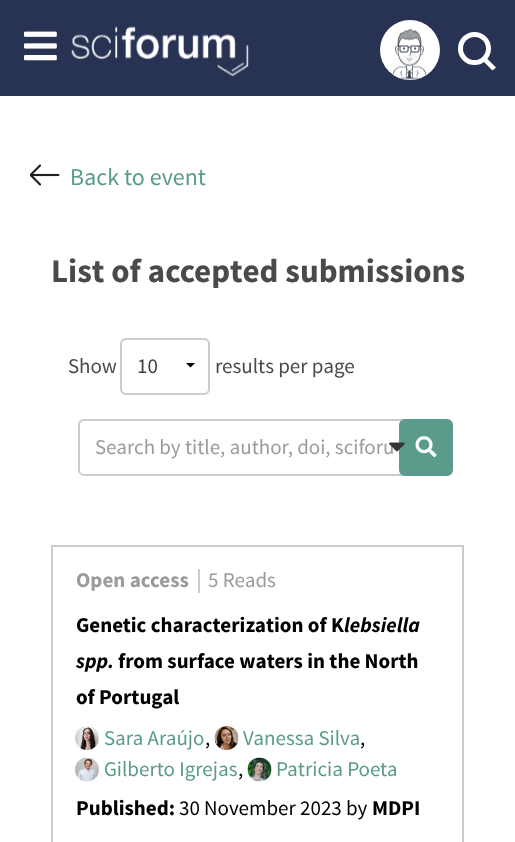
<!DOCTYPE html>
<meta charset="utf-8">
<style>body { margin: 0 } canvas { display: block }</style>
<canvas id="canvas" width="515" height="842"></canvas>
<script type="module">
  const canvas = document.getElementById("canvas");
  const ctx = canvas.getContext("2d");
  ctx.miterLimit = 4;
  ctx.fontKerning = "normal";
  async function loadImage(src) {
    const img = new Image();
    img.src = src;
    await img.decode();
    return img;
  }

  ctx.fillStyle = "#ffffff";
  ctx.fillRect(0, 0, 515, 842);
  ctx.fillStyle = "#283353";
  ctx.fillRect(0, 0, 515, 96);
  ctx.drawImage(await loadImage("img1.png"), 24, 31, 33, 30);
  ctx.drawImage(await loadImage("img2.png"), 71, 26, 178, 51);
  ctx.fillStyle = "#ffffff";
  ctx.beginPath();
  ctx.arc(410, 50, 30, 0, Math.PI * 2);
  ctx.fill();
  ctx.drawImage(await loadImage("img3.png"), 392, 28, 35, 52);
  ctx.beginPath();
  ctx.arc(474.5, 48.5, 14, 0, Math.PI * 2);
  ctx.strokeStyle = "#ffffff";
  ctx.lineWidth = 5;
  ctx.stroke();
  ctx.beginPath();
  ctx.moveTo(485.5, 57);
  ctx.lineTo(496, 67.5);
  ctx.lineTo(492.5, 70.5);
  ctx.lineTo(482, 60);
  ctx.closePath();
  ctx.fill();
  ctx.drawImage(await loadImage("img4.png"), 30, 164, 30, 22);
  ctx.font = "24px Source Sans Pro";
  ctx.fillStyle = "#5a9b8b";
  ctx.fillText("Back to event", 70, 185);
  ctx.font = "bold 33px Source Sans Pro";
  ctx.fillStyle = "#4a4a4a";
  ctx.fillText("List of accepted submissions", 51, 282);
  ctx.font = "21px Source Sans Pro";
  ctx.fillText("Show", 68, 373);
  ctx.fillStyle = "#000000";
  ctx.beginPath();
  ctx.moveTo(195, 363);
  ctx.lineTo(190.5, 367.5);
  ctx.lineTo(186, 363);
  ctx.closePath();
  ctx.fill();
  ctx.beginPath();
  ctx.roundRect(121, 339, 88, 55, 5);
  ctx.strokeStyle = "#cccccc";
  ctx.lineWidth = 2;
  ctx.stroke();
  ctx.fillStyle = "#404040";
  ctx.fillText("10", 137, 373);
  ctx.fillStyle = "#4a4a4a";
  ctx.fillText("results per page", 215, 373);
  ctx.beginPath();
  ctx.roundRect(79, 420, 363, 55, 5);
  ctx.stroke();
  ctx.fillStyle = "#9b9b9b";
  ctx.fillText("Search by title, author, doi, sciforu", 95, 454);
  ctx.fillStyle = "#5a9b8b";
  ctx.beginPath();
  ctx.roundRect(400, 420, 52, 55, 5);
  ctx.fill();
  ctx.strokeStyle = "#5a9b8b";
  ctx.stroke();
  ctx.drawImage(await loadImage("img5.png"), 389, 442, 16, 10);
  ctx.drawImage(await loadImage("img6.png"), 415, 436, 22, 22);
  ctx.strokeStyle = "#cccccc";
  ctx.strokeRect(52, 546, 411, 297);
  ctx.fillStyle = "#cccccc";
  ctx.fillRect(198, 569, 2, 24);
  ctx.font = "bold 21px Source Sans Pro";
  ctx.fillStyle = "#9b9b9b";
  ctx.fillText("Open access", 76, 587);
  ctx.font = "21px Source Sans Pro";
  ctx.fillText("5 Reads", 208, 587);
  ctx.font = "bold 21px Source Sans Pro";
  ctx.fillStyle = "#000000";
  ctx.fillText("Genetic characterization of K", 76, 632);
  ctx.font = "italic bold 21px Source Sans Pro";
  ctx.fillText("lebsiella", 344, 632);
  ctx.fillText("spp.", 76, 668);
  ctx.font = "bold 21px Source Sans Pro";
  ctx.fillText("from surface waters in the North", 118, 668);
  ctx.fillText("of Portugal", 76, 704);
  ctx.drawImage(await loadImage("img7.png"), 75, 726, 24, 24);
  ctx.font = "21px Source Sans Pro";
  ctx.fillStyle = "#5a9b8b";
  ctx.fillText("Sara Araújo", 104, 745);
  ctx.fillStyle = "#000000";
  ctx.fillText(",", 205, 745);
  ctx.drawImage(await loadImage("img8.png"), 214, 726, 25, 24);
  ctx.fillStyle = "#5a9b8b";
  ctx.fillText("Vanessa Silva", 243, 745);
  ctx.fillStyle = "#000000";
  ctx.fillText(",", 360, 745);
  ctx.drawImage(await loadImage("img9.png"), 75, 757, 24, 25);
  ctx.fillStyle = "#5a9b8b";
  ctx.fillText("Gilberto Igrejas", 104, 776);
  ctx.fillStyle = "#000000";
  ctx.fillText(",", 238, 776);
  ctx.drawImage(await loadImage("img10.png"), 247, 757, 25, 25);
  ctx.fillStyle = "#5a9b8b";
  ctx.fillText("Patricia Poeta", 276, 776);
  ctx.font = "bold 21px Source Sans Pro";
  ctx.fillStyle = "#000000";
  ctx.fillText("Published:", 76, 815);
  ctx.font = "21px Source Sans Pro";
  ctx.fillText("30 November 2023 by", 179, 815);
  ctx.font = "bold 21px Source Sans Pro";
  ctx.fillText("MDPI", 372, 815);
</script>
